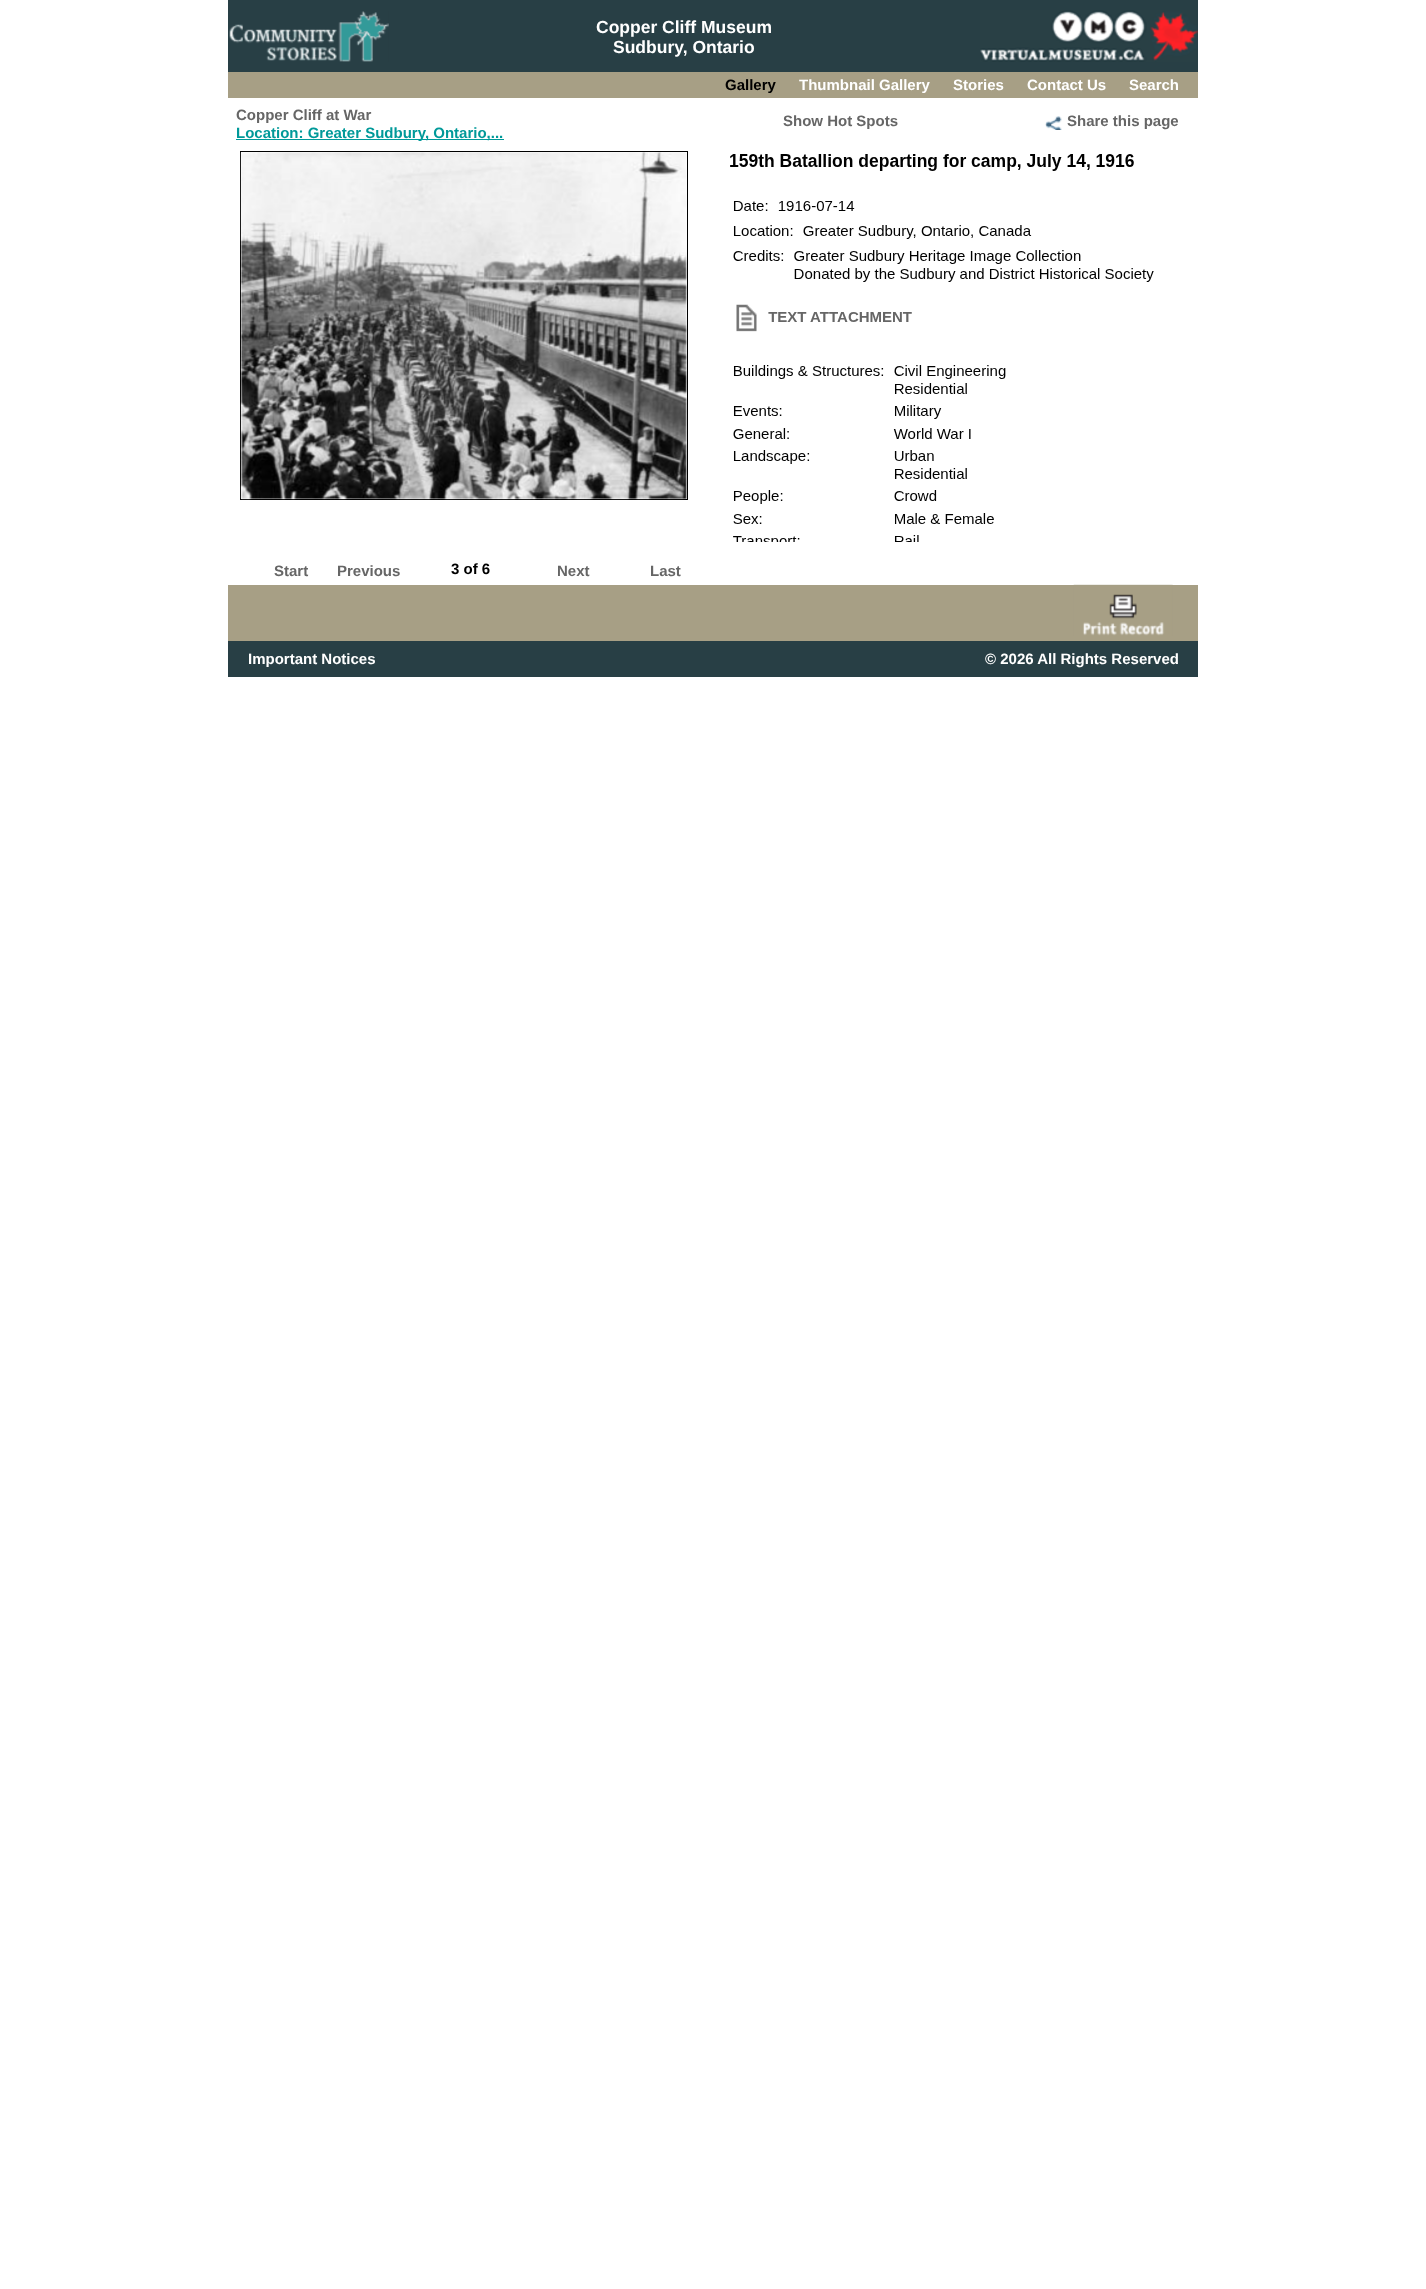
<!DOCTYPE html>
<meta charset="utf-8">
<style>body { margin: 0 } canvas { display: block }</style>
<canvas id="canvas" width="1426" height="2289"></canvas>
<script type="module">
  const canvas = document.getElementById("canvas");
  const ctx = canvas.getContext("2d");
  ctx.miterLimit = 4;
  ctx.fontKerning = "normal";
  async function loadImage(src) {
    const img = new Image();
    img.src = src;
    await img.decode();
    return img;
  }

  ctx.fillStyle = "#ffffff";
  ctx.fillRect(0, 0, 1426, 2289);
  ctx.fillStyle = "#283f45";
  ctx.fillRect(228, 0, 970, 72);
  ctx.drawImage(await loadImage("img1.png"), 229, 11, 160, 51);
  ctx.font = "bold 17.5px Liberation Sans";
  ctx.fillStyle = "#ffffff";
  ctx.fillText("Copper Cliff Museum", 596, 33);
  ctx.fillText("Sudbury, Ontario", 613, 53);
  ctx.drawImage(await loadImage("img2.png"), 980, 10, 218, 52);
  ctx.fillStyle = "#a79f85";
  ctx.fillRect(228, 72, 970, 26);
  ctx.font = "bold 15px Liberation Sans";
  ctx.fillStyle = "#000000";
  ctx.fillText("Gallery", 725, 90);
  ctx.fillStyle = "#ffffff";
  ctx.fillText("Thumbnail Gallery", 799, 90);
  ctx.fillText("Stories", 953, 90);
  ctx.fillText("Contact Us", 1027, 90);
  ctx.fillText("Search", 1129, 90);
  ctx.fillStyle = "#666666";
  ctx.fillText("Copper Cliff at War", 236, 120);
  ctx.fillStyle = "#009999";
  ctx.fillRect(236, 139, 268, 1);
  ctx.fillText("Location: Greater Sudbury, Ontario,...", 236, 138);
  ctx.fillStyle = "#666666";
  ctx.fillText("Show Hot Spots", 783, 126);
  ctx.drawImage(await loadImage("img3.png"), 1045, 116, 17, 14);
  ctx.fillText("Share this page", 1067, 126);
  ctx.strokeStyle = "#000000";
  ctx.strokeRect(240.5, 151.5, 447, 348);
  ctx.drawImage(await loadImage("img4.png"), 240, 152, 447, 348);
  ctx.drawImage(await loadImage("img5.png"), 730, 154, 424, 388);
  ctx.fillText("Start", 274, 576);
  ctx.fillText("Previous", 337, 576);
  ctx.fillStyle = "#000000";
  ctx.fillText("3 of 6", 451, 574);
  ctx.fillStyle = "#666666";
  ctx.fillText("Next", 557, 576);
  ctx.fillText("Last", 650, 576);
  ctx.fillStyle = "#a79f85";
  ctx.fillRect(228, 585, 970, 56);
  ctx.drawImage(await loadImage("img6.png"), 1073, 584, 100, 52);
  ctx.fillStyle = "#283f45";
  ctx.fillRect(228, 641, 970, 36);
  ctx.fillStyle = "#ffffff";
  ctx.fillText("Important Notices", 248, 664);
  ctx.fillText("© 2026 All Rights Reserved", 985, 664);
</script>
